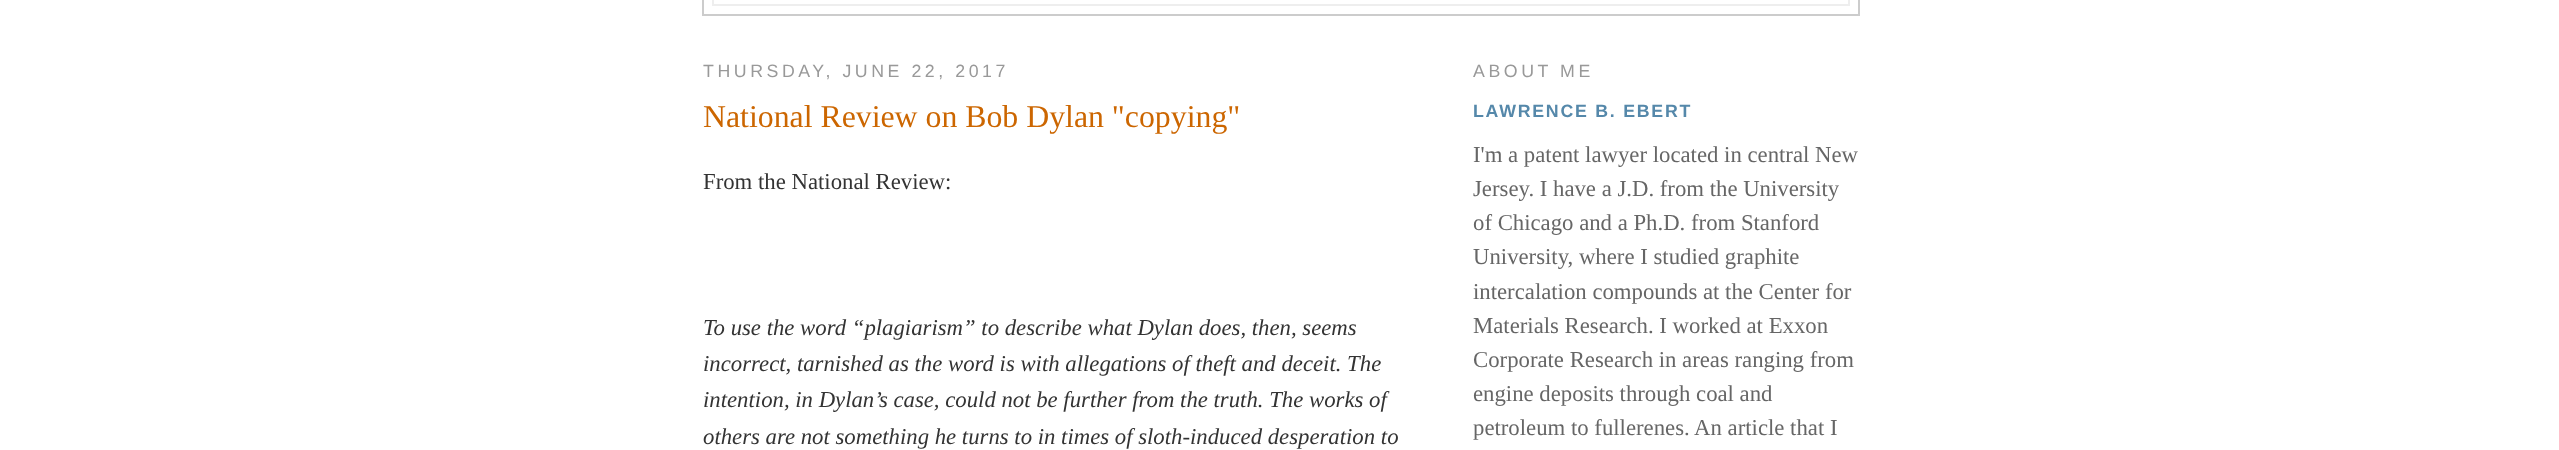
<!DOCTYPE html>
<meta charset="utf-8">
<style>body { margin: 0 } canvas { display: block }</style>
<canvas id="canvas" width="2559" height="450"></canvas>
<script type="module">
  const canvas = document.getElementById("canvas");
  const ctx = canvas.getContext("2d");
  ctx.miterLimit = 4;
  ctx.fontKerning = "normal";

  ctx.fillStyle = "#ffffff";
  ctx.fillRect(0, 0, 2559, 450);
  ctx.strokeStyle = "#cccccc";
  ctx.lineWidth = 2;
  ctx.strokeRect(703, -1, 1156, 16);
  ctx.fillStyle = "#eeeeee";
  ctx.fillRect(1848, 0, 2, 5);
  ctx.fillRect(712, 4, 1138, 2);
  ctx.fillRect(712, 0, 2, 5);
  ctx.letterSpacing = "3.55px";
  ctx.font = "17.75px Liberation Sans";
  ctx.fillStyle = "#999999";
  ctx.fillText("THURSDAY, JUNE 22, 2017", 703, 77);
  ctx.letterSpacing = "0px";
  ctx.font = "31.8px Liberation Serif";
  ctx.fillStyle = "#cc6600";
  ctx.fillText("National Review on Bob Dylan \"copying\"", 703, 127);
  ctx.font = "22.75px Liberation Serif";
  ctx.fillStyle = "#333333";
  ctx.fillText("From the National Review:", 703, 189);
  ctx.font = "italic 22.75px Liberation Serif";
  ctx.fillText("To use the word “plagiarism” to describe what Dylan does, then, seems", 703, 335);
  ctx.fillText("incorrect, tarnished as the word is with allegations of theft and deceit. The", 703, 371);
  ctx.fillText("intention, in Dylan’s case, could not be further from the truth. The works of", 703, 407);
  ctx.fillText("others are not something he turns to in times of sloth-induced desperation to", 703, 444);
  ctx.letterSpacing = "3.55px";
  ctx.font = "17.75px Liberation Sans";
  ctx.fillStyle = "#999999";
  ctx.fillText("ABOUT ME", 1473, 77);
  ctx.letterSpacing = "1.75px";
  ctx.font = "bold 17.75px Liberation Sans";
  ctx.fillStyle = "#5588aa";
  ctx.fillText("LAWRENCE B. EBERT", 1473, 117);
  ctx.letterSpacing = "0px";
  ctx.font = "22.75px Liberation Serif";
  ctx.fillStyle = "#666666";
  ctx.fillText("I'm a patent lawyer located in central New", 1473, 162);
  ctx.fillText("Jersey. I have a J.D. from the University", 1473, 196);
  ctx.fillText("of Chicago and a Ph.D. from Stanford", 1473, 230);
  ctx.fillText("University, where I studied graphite", 1473, 264);
  ctx.fillText("intercalation compounds at the Center for", 1473, 299);
  ctx.fillText("Materials Research. I worked at Exxon", 1473, 333);
  ctx.fillText("Corporate Research in areas ranging from", 1473, 367);
  ctx.fillText("engine deposits through coal and", 1473, 401);
  ctx.fillText("petroleum to fullerenes. An article that I", 1473, 435);
</script>
